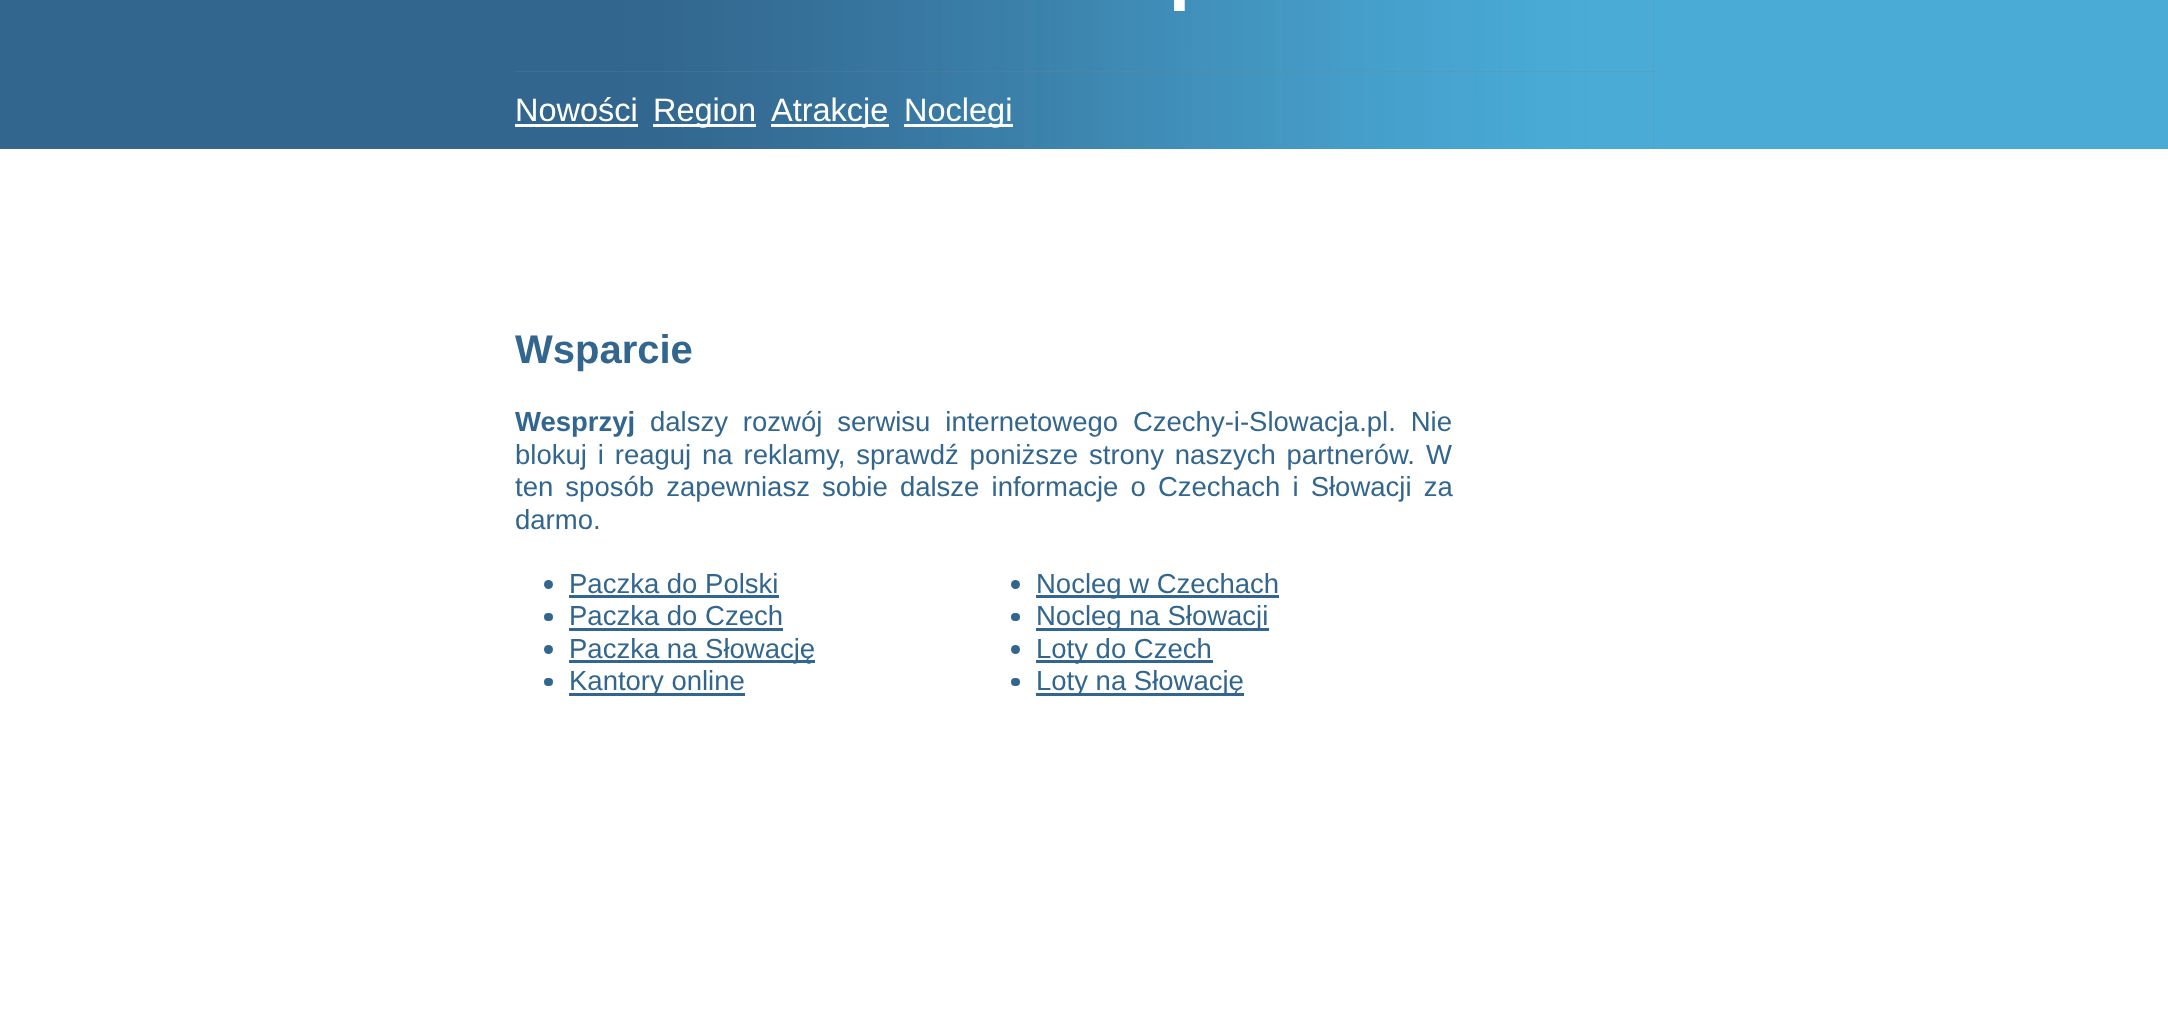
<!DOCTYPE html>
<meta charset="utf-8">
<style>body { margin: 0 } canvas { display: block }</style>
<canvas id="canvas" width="2168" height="1010"></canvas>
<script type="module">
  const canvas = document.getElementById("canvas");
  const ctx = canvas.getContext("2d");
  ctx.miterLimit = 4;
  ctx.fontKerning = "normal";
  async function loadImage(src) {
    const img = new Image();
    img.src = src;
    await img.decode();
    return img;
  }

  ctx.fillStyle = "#ffffff";
  ctx.fillRect(0, 0, 2168, 1010);
  ctx.fillStyle = "#798583";
  ctx.fillRect(515, 0, 1139, 149);
  ctx.fillStyle = "#32668e";
  ctx.fillRect(0, 0, 515, 149);
  ctx.drawImage(await loadImage("img1.png"), 515, 0, 1139, 72);
  ctx.font = "bold 75px Liberation Sans";
  ctx.fillStyle = "#ffffff";
  ctx.fillText(".", 1169, 11);
  ctx.fillStyle = "#4aabd6";
  ctx.fillRect(1654, 0, 514, 149);
  ctx.drawImage(await loadImage("img2.png"), 515, 71, 1139, 78);
  ctx.font = "32.5px Liberation Sans";
  ctx.fillStyle = "#ffffff";
  ctx.fillText("Nowości", 515, 121);
  ctx.fillRect(515, 124, 123, 3);
  ctx.fillRect(653, 124, 103, 3);
  ctx.fillText("Region", 653, 121);
  ctx.fillRect(771, 124, 118, 3);
  ctx.fillText("Atrakcje", 771, 121);
  ctx.fillRect(904, 124, 109, 3);
  ctx.fillText("Noclegi", 904, 121);
  ctx.font = "bold 40px Liberation Sans";
  ctx.fillStyle = "#32668e";
  ctx.fillText("Wsparcie", 515, 363);
  ctx.font = "bold 27.5px Liberation Sans";
  ctx.fillText("Wesprzyj", 515, 431);
  ctx.wordSpacing = "7.25px";
  ctx.font = "27.5px Liberation Sans";
  ctx.fillText("dalszy rozwój serwisu internetowego Czechy-i-Slowacja.pl. Nie", 650, 431);
  ctx.wordSpacing = "3.25px";
  ctx.fillText("blokuj i reaguj na reklamy, sprawdź poniższe strony naszych partnerów. W", 515, 464);
  ctx.wordSpacing = "4.5px";
  ctx.fillText("ten sposób zapewniasz sobie dalsze informacje o Czechach i Słowacji za", 515, 496);
  ctx.wordSpacing = "0px";
  ctx.fillText("darmo.", 515, 529);
  ctx.beginPath();
  ctx.arc(548.5, 584.5, 4.5, 0, Math.PI * 2);
  ctx.fill();
  ctx.fillText("Paczka do Polski", 569, 593);
  ctx.fillRect(569, 595, 210, 3);
  ctx.beginPath();
  ctx.roundRect(544, 613, 9, 8, 4);
  ctx.fill();
  ctx.fillText("Paczka do Czech", 569, 625);
  ctx.fillRect(569, 628, 214, 3);
  ctx.beginPath();
  ctx.arc(548.5, 649.5, 4.5, 0, Math.PI * 2);
  ctx.fill();
  ctx.fillRect(569, 660, 246, 3);
  ctx.fillText("Paczka na Słowację", 569, 658);
  ctx.beginPath();
  ctx.roundRect(544, 678, 9, 8, 4);
  ctx.fill();
  ctx.fillRect(569, 693, 176, 3);
  ctx.fillText("Kantory online", 569, 690);
  ctx.beginPath();
  ctx.arc(1015.5, 584.5, 4.5, 0, Math.PI * 2);
  ctx.fill();
  ctx.fillRect(1036, 595, 243, 3);
  ctx.fillText("Nocleg w Czechach", 1036, 593);
  ctx.beginPath();
  ctx.roundRect(1011, 613, 9, 8, 4);
  ctx.fill();
  ctx.fillRect(1036, 628, 233, 3);
  ctx.fillText("Nocleg na Słowacji", 1036, 625);
  ctx.beginPath();
  ctx.arc(1015.5, 649.5, 4.5, 0, Math.PI * 2);
  ctx.fill();
  ctx.fillRect(1036, 660, 177, 3);
  ctx.fillText("Loty do Czech", 1036, 658);
  ctx.beginPath();
  ctx.roundRect(1011, 678, 9, 8, 4);
  ctx.fill();
  ctx.fillRect(1036, 693, 208, 3);
  ctx.fillText("Loty na Słowację", 1036, 690);
</script>
